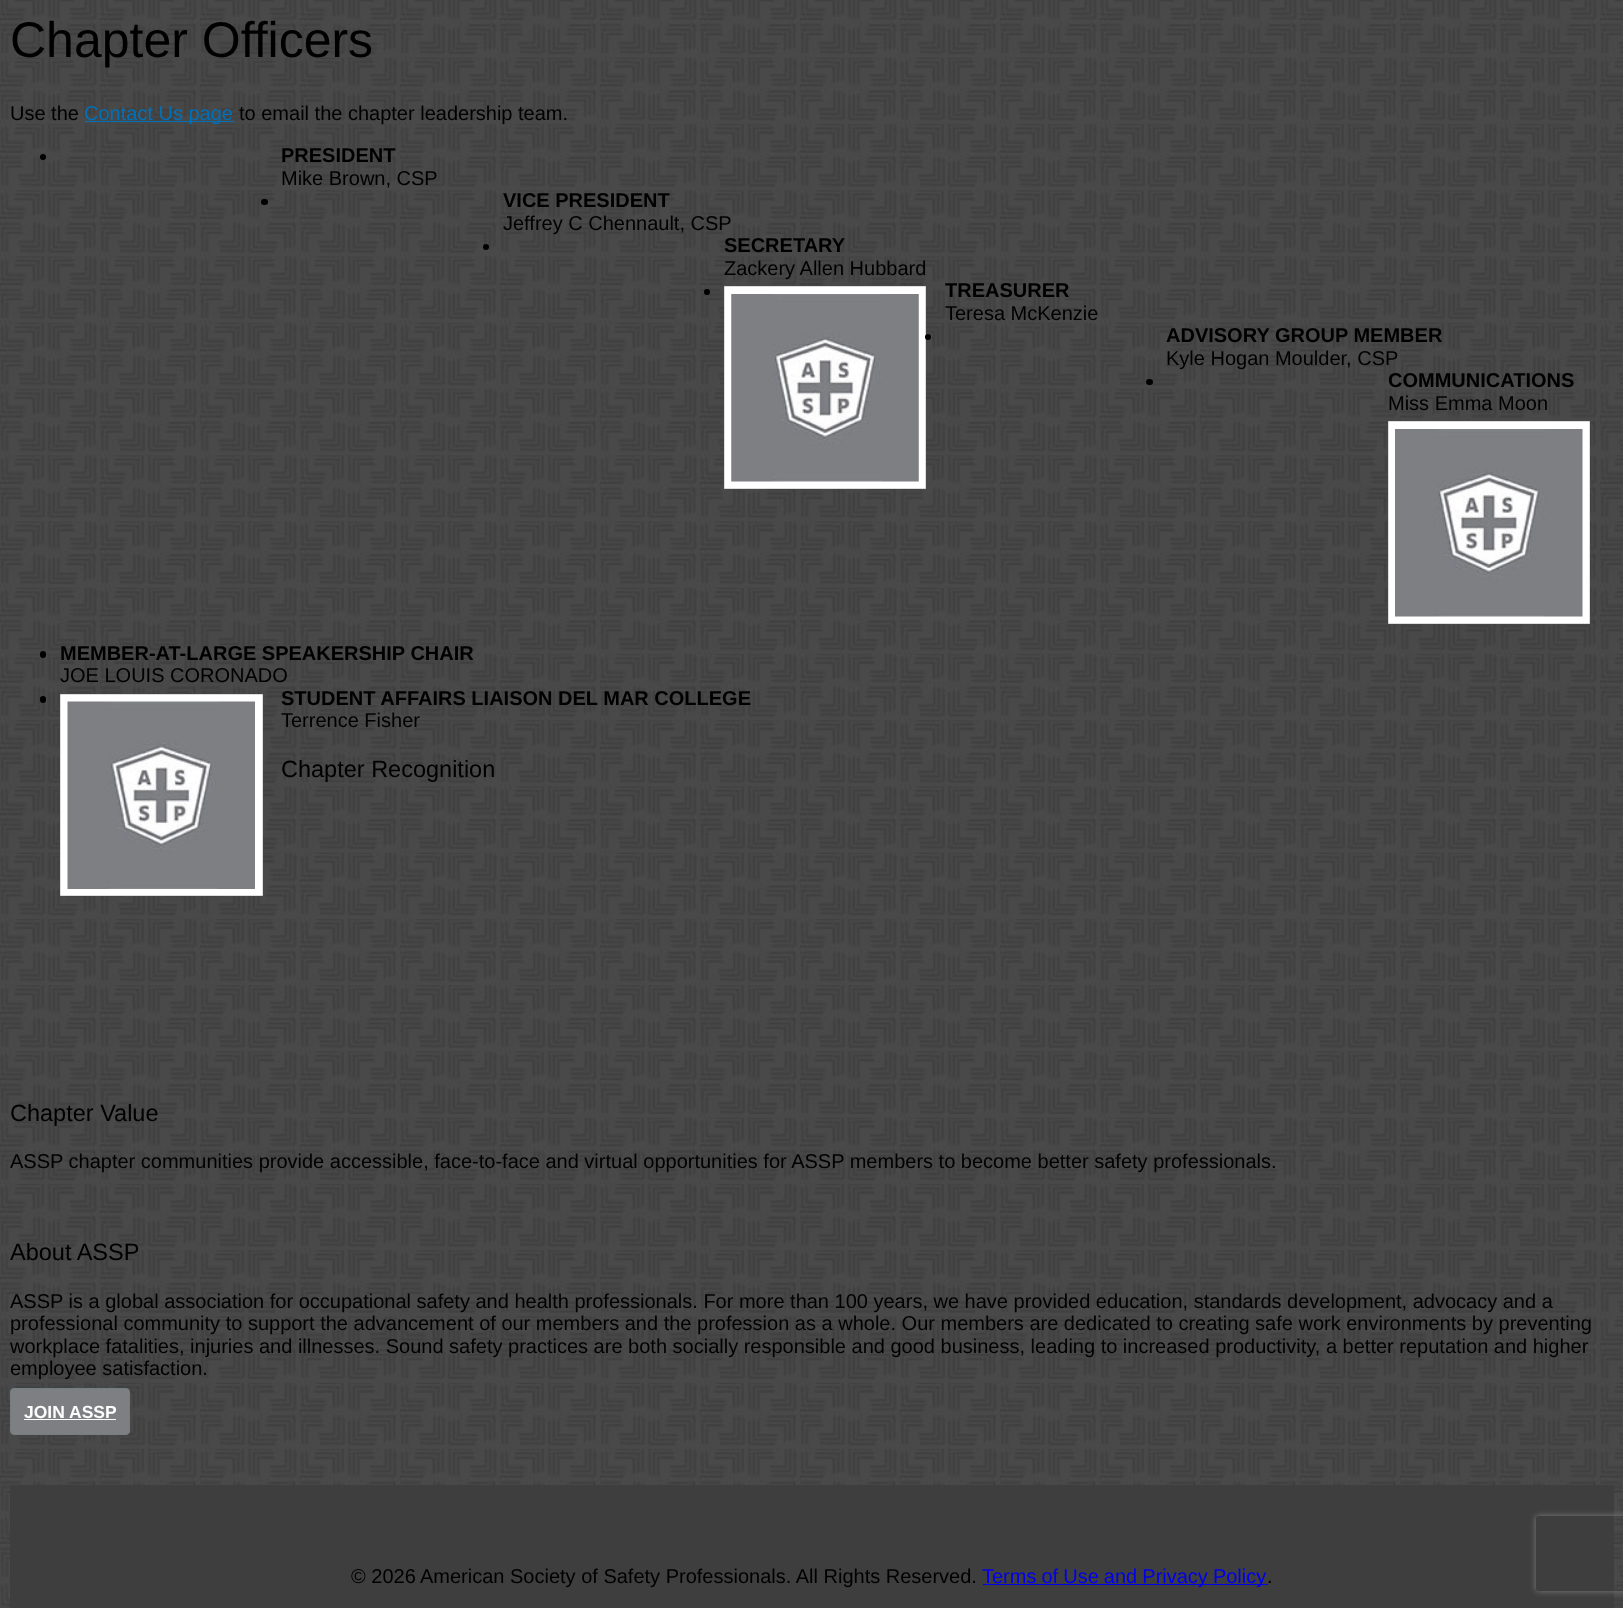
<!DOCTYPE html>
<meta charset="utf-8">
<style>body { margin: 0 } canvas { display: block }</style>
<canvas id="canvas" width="1623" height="1608"></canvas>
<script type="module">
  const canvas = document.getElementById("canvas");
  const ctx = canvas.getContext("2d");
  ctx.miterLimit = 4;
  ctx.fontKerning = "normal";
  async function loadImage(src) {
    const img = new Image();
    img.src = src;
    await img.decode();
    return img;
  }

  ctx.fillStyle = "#ffffff";
  ctx.fillRect(0, 0, 1623, 1608);
  ctx.drawImage(await loadImage("img1.png"), 0, 0, 1623, 1608);
  ctx.font = "50px Liberation Sans";
  ctx.fillStyle = "#000000";
  ctx.fillText("Chapter Officers", 10, 57);
  ctx.font = "20px Liberation Sans";
  ctx.fillText("Use the", 10, 120);
  ctx.fillStyle = "#0071b9";
  ctx.fillRect(85, 121, 149, 1);
  ctx.fillText("Contact Us page", 84, 120);
  ctx.fillStyle = "#000000";
  ctx.fillText("to email the chapter leadership team.", 239, 120);
  ctx.beginPath();
  ctx.arc(43, 157, 3, 0, Math.PI * 2);
  ctx.fill();
  ctx.font = "bold 20px Liberation Sans";
  ctx.fillText("PRESIDENT", 281, 162);
  ctx.font = "20px Liberation Sans";
  ctx.fillText("Mike Brown, CSP", 281, 185);
  ctx.beginPath();
  ctx.roundRect(261, 199, 7, 6, 3);
  ctx.fill();
  ctx.font = "bold 20px Liberation Sans";
  ctx.fillText("VICE PRESIDENT", 503, 207);
  ctx.font = "20px Liberation Sans";
  ctx.fillText("Jeffrey C Chennault, CSP", 503, 230);
  ctx.beginPath();
  ctx.arc(486, 247, 3, 0, Math.PI * 2);
  ctx.fill();
  ctx.font = "bold 20px Liberation Sans";
  ctx.fillText("SECRETARY", 724, 252);
  ctx.font = "20px Liberation Sans";
  ctx.fillText("Zackery Allen Hubbard", 724, 275);
  ctx.beginPath();
  ctx.arc(707, 292, 3, 0, Math.PI * 2);
  ctx.fill();
  ctx.fillStyle = "#ffffff";
  ctx.beginPath();
  ctx.rect(724.5, 286.5, 201, 202);
  ctx.fill();
  ctx.strokeStyle = "#dddddd";
  ctx.stroke();
  ctx.drawImage(await loadImage("img2.png"), 731, 294, 188, 188);
  ctx.font = "bold 20px Liberation Sans";
  ctx.fillStyle = "#000000";
  ctx.fillText("TREASURER", 945, 297);
  ctx.font = "20px Liberation Sans";
  ctx.fillText("Teresa McKenzie", 945, 320);
  ctx.beginPath();
  ctx.arc(928, 337, 3, 0, Math.PI * 2);
  ctx.fill();
  ctx.font = "bold 20px Liberation Sans";
  ctx.fillText("ADVISORY GROUP MEMBER", 1166, 342);
  ctx.font = "20px Liberation Sans";
  ctx.fillText("Kyle Hogan Moulder, CSP", 1166, 365);
  ctx.beginPath();
  ctx.roundRect(1146, 379, 7, 6, 3);
  ctx.fill();
  ctx.font = "bold 20px Liberation Sans";
  ctx.fillText("COMMUNICATIONS", 1388, 387);
  ctx.font = "20px Liberation Sans";
  ctx.fillText("Miss Emma Moon", 1388, 410);
  ctx.fillStyle = "#ffffff";
  ctx.beginPath();
  ctx.rect(1388.5, 421.5, 201, 202);
  ctx.fill();
  ctx.stroke();
  ctx.drawImage(await loadImage("img3.png"), 1395, 429, 188, 188);
  ctx.fillStyle = "#000000";
  ctx.beginPath();
  ctx.roundRect(40, 651, 6, 7, 3);
  ctx.fill();
  ctx.font = "bold 20px Liberation Sans";
  ctx.fillText("MEMBER-AT-LARGE SPEAKERSHIP CHAIR", 60, 660);
  ctx.font = "20px Liberation Sans";
  ctx.fillText("JOE LOUIS CORONADO", 60, 682);
  ctx.beginPath();
  ctx.roundRect(40, 696, 6, 7, 3);
  ctx.fill();
  ctx.fillStyle = "#ffffff";
  ctx.beginPath();
  ctx.rect(60.5, 694.5, 202, 201);
  ctx.fill();
  ctx.stroke();
  ctx.drawImage(await loadImage("img4.png"), 67, 701, 188, 188);
  ctx.font = "bold 20px Liberation Sans";
  ctx.fillStyle = "#000000";
  ctx.fillText("STUDENT AFFAIRS LIAISON DEL MAR COLLEGE", 281, 705);
  ctx.font = "20px Liberation Sans";
  ctx.fillText("Terrence Fisher", 281, 727);
  ctx.font = "23.5px Liberation Sans";
  ctx.fillText("Chapter Recognition", 281, 777);
  ctx.fillText("Chapter Value", 10, 1121);
  ctx.font = "20px Liberation Sans";
  ctx.fillText("ASSP chapter communities provide accessible, face-to-face and virtual opportunities for ASSP members to become better safety professionals.", 10, 1168);
  ctx.font = "23.5px Liberation Sans";
  ctx.fillText("About ASSP", 10, 1260);
  ctx.font = "20px Liberation Sans";
  ctx.fillText("ASSP is a global association for occupational safety and health professionals. For more than 100 years, we have provided education, standards development, advocacy and a", 10, 1308);
  ctx.fillText("professional community to support the advancement of our members and the profession as a whole. Our members are dedicated to creating safe work environments by preventing", 10, 1330);
  ctx.fillText("workplace fatalities, injuries and illnesses. Sound safety practices are both socially responsible and good business, leading to increased productivity, a better reputation and higher", 10, 1353);
  ctx.fillText("employee satisfaction.", 10, 1375);
  ctx.fillStyle = "#7e7f83";
  ctx.beginPath();
  ctx.roundRect(10.5, 1388.5, 119, 46, 3.5);
  ctx.fill();
  ctx.strokeStyle = "#737f83";
  ctx.stroke();
  ctx.font = "bold 17.5px Liberation Sans";
  ctx.fillStyle = "#fcfcfc";
  ctx.fillText("JOIN ASSP", 24, 1418);
  ctx.fillRect(24, 1419, 92, 1);
  ctx.fillStyle = "#3e3e3e";
  ctx.fillRect(10, 1485, 1604, 123);
  ctx.font = "20px Liberation Sans";
  ctx.fillStyle = "#000000";
  ctx.fillText("© 2026", 351, 1583);
  ctx.fillText("American Society of Safety Professionals. All Rights Reserved.", 420, 1583);
  ctx.fillStyle = "#0000ee";
  ctx.fillRect(983, 1584, 285, 1);
  ctx.wordSpacing = "-0.5px";
  ctx.fillText("Terms of Use and Privacy Policy", 982, 1583);
  ctx.wordSpacing = "0px";
  ctx.fillStyle = "#000000";
  ctx.fillText(".", 1267, 1583);
  ctx.save();
  ctx.beginPath();
  ctx.moveTo(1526, 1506);
  ctx.lineTo(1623, 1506);
  ctx.lineTo(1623, 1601);
  ctx.lineTo(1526, 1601);
  ctx.closePath();
  ctx.moveTo(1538.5, 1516);
  ctx.lineTo(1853.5, 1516);
  ctx.bezierCurveTo(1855, 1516, 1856, 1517, 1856, 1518.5);
  ctx.lineTo(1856, 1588.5);
  ctx.bezierCurveTo(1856, 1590, 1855, 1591, 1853.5, 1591);
  ctx.lineTo(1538.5, 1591);
  ctx.bezierCurveTo(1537, 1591, 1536, 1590, 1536, 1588.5);
  ctx.lineTo(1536, 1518.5);
  ctx.bezierCurveTo(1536, 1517, 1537, 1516, 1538.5, 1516);
  ctx.closePath();
  ctx.clip("evenodd");
  ctx.fillStyle = "#808080";
  ctx.filter = "blur(3px)";
  ctx.beginPath();
  ctx.roundRect(1536, 1516, 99, 75, 2.5);
  ctx.fill();
  ctx.filter = "none";
  ctx.restore();
</script>
